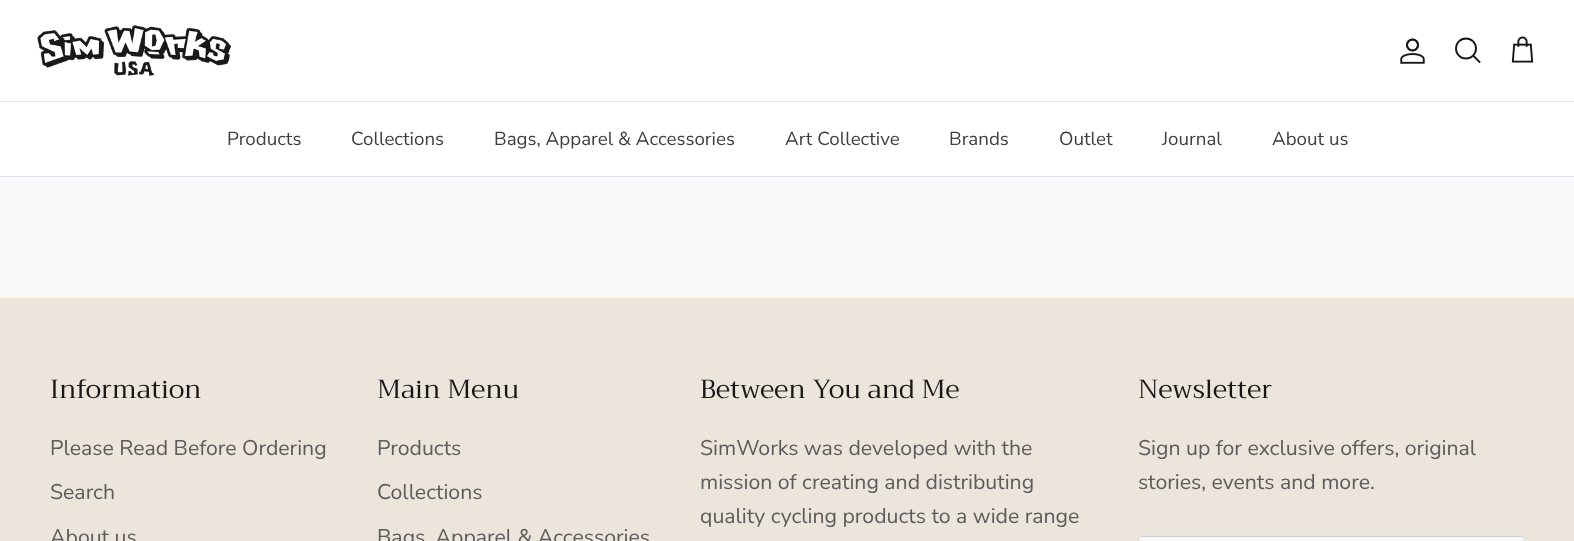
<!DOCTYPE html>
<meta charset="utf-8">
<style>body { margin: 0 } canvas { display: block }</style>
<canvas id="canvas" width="1574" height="541"></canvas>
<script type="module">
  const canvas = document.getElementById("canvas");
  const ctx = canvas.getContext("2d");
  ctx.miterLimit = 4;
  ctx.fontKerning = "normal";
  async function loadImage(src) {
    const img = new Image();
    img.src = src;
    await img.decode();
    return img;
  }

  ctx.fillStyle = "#f9f9f9";
  ctx.fillRect(0, 0, 1574, 541);
  ctx.fillStyle = "#ffffff";
  ctx.fillRect(0, 0, 1574, 176);
  ctx.fillStyle = "#dfe3e8";
  ctx.fillRect(0, 101, 1574, 1);
  ctx.drawImage(await loadImage("img1.png"), 37, 25, 195, 51);
  ctx.drawImage(await loadImage("img2.png"), 1400, 38, 25, 26);
  ctx.beginPath();
  ctx.arc(1466, 48.5, 10, 0, Math.PI * 2);
  ctx.strokeStyle = "#171717";
  ctx.lineWidth = 1.9;
  ctx.stroke();
  ctx.beginPath();
  ctx.moveTo(1473.5, 56);
  ctx.lineTo(1479.5, 62);
  ctx.lineCap = "square";
  ctx.stroke();
  ctx.drawImage(await loadImage("img3.png"), 1511, 36, 23, 27);
  ctx.fillRect(0, 176, 1574, 1);
  ctx.font = "18.75px Nunito Sans";
  ctx.fillStyle = "#3f3f3f";
  ctx.fillText("Products", 227, 145);
  ctx.fillText("Collections", 351, 145);
  ctx.fillText("Bags, Apparel & Accessories", 494, 145);
  ctx.fillText("Art Collective", 785, 145);
  ctx.fillText("Brands", 949, 145);
  ctx.fillText("Outlet", 1059, 145);
  ctx.fillText("Journal", 1162, 145);
  ctx.fillText("About us", 1272, 145);
  ctx.fillStyle = "#ebe5dc";
  ctx.fillRect(0, 299, 1574, 242);
  ctx.fillStyle = "#efdfc7";
  ctx.fillRect(0, 298, 1574, 1);
  ctx.font = "26.25px Trirong";
  ctx.fillStyle = "#171717";
  ctx.fillText("Information", 50, 398);
  ctx.font = "21.25px Nunito Sans";
  ctx.fillStyle = "#5c5c5c";
  ctx.fillText("Please Read Before Ordering", 50, 455);
  ctx.fillText("Search", 50, 499);
  ctx.fillText("About us", 50, 544);
  ctx.font = "26.25px Trirong";
  ctx.fillStyle = "#171717";
  ctx.fillText("Main Menu", 377, 398);
  ctx.font = "21.25px Nunito Sans";
  ctx.fillStyle = "#5c5c5c";
  ctx.fillText("Products", 377, 455);
  ctx.fillText("Collections", 377, 499);
  ctx.fillText("Bags, Apparel & Accessories", 377, 544);
  ctx.font = "26.25px Trirong";
  ctx.fillStyle = "#171717";
  ctx.fillText("Between You and Me", 700, 398);
  ctx.font = "21.25px Nunito Sans";
  ctx.fillStyle = "#5c5c5c";
  ctx.fillText("SimWorks was developed with the", 700, 455);
  ctx.fillText("mission of creating and distributing", 700, 489);
  ctx.fillText("quality cycling products to a wide range", 700, 523);
  ctx.font = "26.25px Trirong";
  ctx.fillStyle = "#171717";
  ctx.fillText("Newsletter", 1138, 398);
  ctx.font = "21.25px Nunito Sans";
  ctx.fillStyle = "#5c5c5c";
  ctx.fillText("Sign up for exclusive offers, original", 1138, 455);
  ctx.fillText("stories, events and more.", 1138, 489);
  ctx.fillStyle = "#f9f9f9";
  ctx.beginPath();
  ctx.roundRect(1138.5, 536.5, 386, 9, 3.5);
  ctx.fill();
  ctx.strokeStyle = "#d2d2d2";
  ctx.lineWidth = 1;
  ctx.stroke();
</script>
